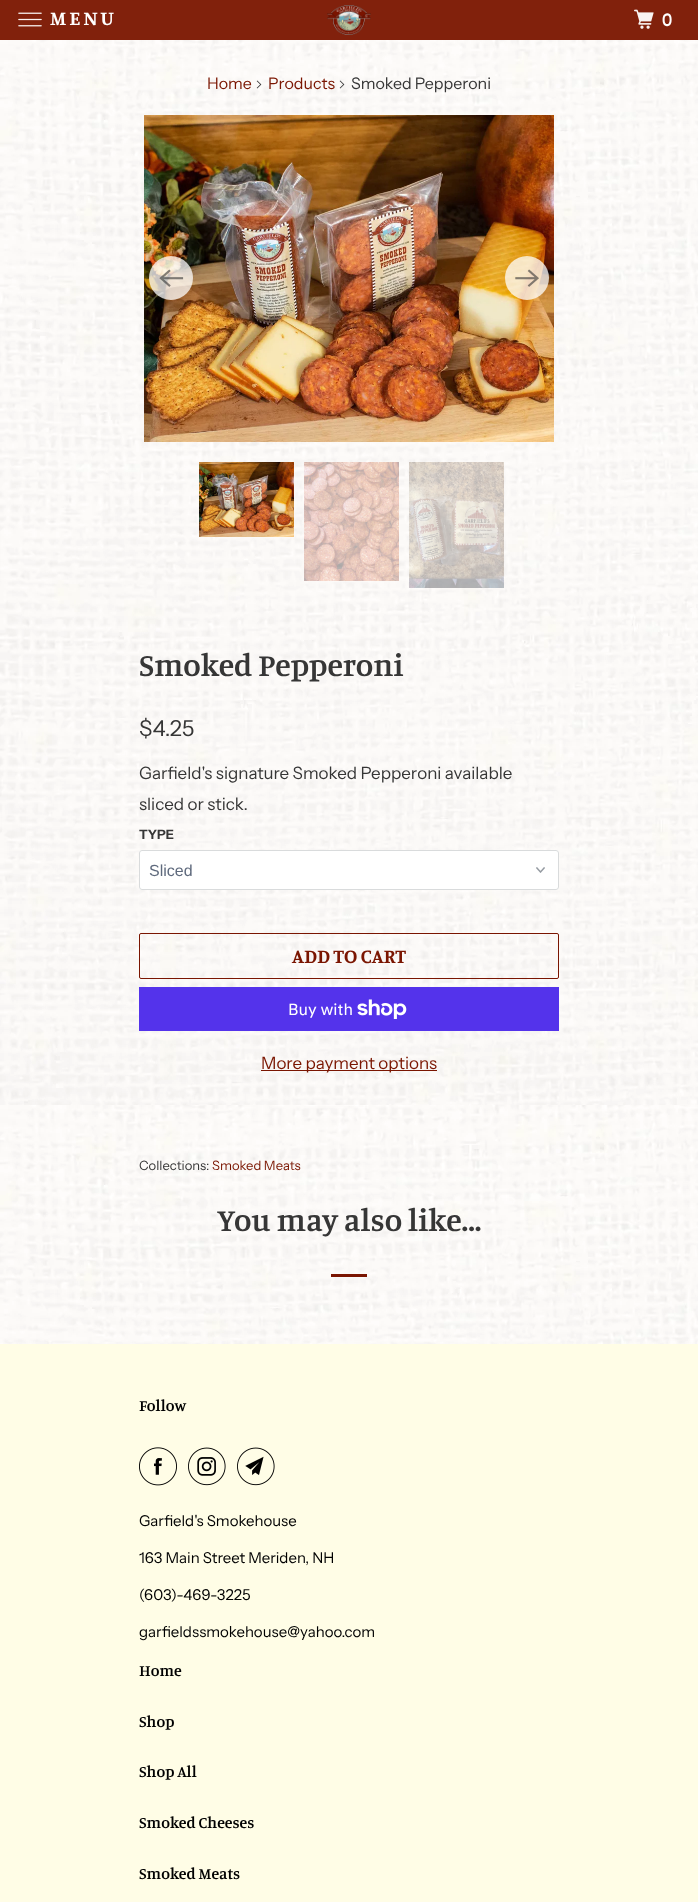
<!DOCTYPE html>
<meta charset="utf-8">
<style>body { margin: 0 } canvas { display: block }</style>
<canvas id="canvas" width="698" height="1902"></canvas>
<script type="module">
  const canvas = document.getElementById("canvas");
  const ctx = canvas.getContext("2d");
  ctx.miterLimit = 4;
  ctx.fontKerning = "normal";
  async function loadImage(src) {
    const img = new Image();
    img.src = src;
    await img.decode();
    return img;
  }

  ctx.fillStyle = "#ffffff";
  ctx.fillRect(0, 0, 698, 1902);
  ctx.fillStyle = "#81210c";
  ctx.fillRect(0, 0, 698, 40);
  ctx.drawImage(await loadImage("img1.png"), 18, 12, 24, 15);
  ctx.letterSpacing = "3px";
  ctx.font = "bold 20px Manuale";
  ctx.fillStyle = "#ffffff";
  ctx.fillText("MENU", 50, 25);
  ctx.drawImage(await loadImage("img2.png"), 327, 5, 44, 30);
  ctx.drawImage(await loadImage("img3.png"), 634, 9, 20, 20);
  ctx.fillText("0", 662, 26);
  ctx.drawImage(await loadImage("img4.png"), 0, 40, 698, 1304);
  ctx.letterSpacing = "0px";
  ctx.font = "16px Instrument Sans";
  ctx.fillStyle = "#7a1501";
  ctx.fillText("Home", 207, 89);
  ctx.drawImage(await loadImage("img5.png"), 256, 80, 6, 9);
  ctx.fillText("Products", 268, 89);
  ctx.drawImage(await loadImage("img6.png"), 339, 80, 6, 9);
  ctx.fillStyle = "#363636";
  ctx.fillText("Smoked Pepperoni", 351, 89);
  ctx.drawImage(await loadImage("img7.png"), 144, 115, 410, 327);
  ctx.fillStyle = "rgba(255, 255, 255, 0.75)";
  ctx.beginPath();
  ctx.arc(171, 278, 22, 0, Math.PI * 2);
  ctx.fill();
  ctx.drawImage(await loadImage("img8.png"), 159, 269, 25, 18);
  ctx.beginPath();
  ctx.arc(527, 278, 22, 0, Math.PI * 2);
  ctx.fill();
  ctx.drawImage(await loadImage("img9.png"), 515, 269, 24, 18);
  ctx.drawImage(await loadImage("img10.png"), 199, 462, 95, 75);
  ctx.drawImage(await loadImage("img11.png"), 304, 462, 95, 119);
  ctx.drawImage(await loadImage("img12.png"), 409, 462, 95, 126);
  ctx.font = "600 32px Manuale";
  ctx.fillStyle = "#363636";
  ctx.fillText("Smoked Pepperoni", 139, 676);
  ctx.font = "22px Instrument Sans";
  ctx.fillText("$4.25", 139, 736);
  ctx.font = "17px Instrument Sans";
  ctx.fillText("Garfield's signature Smoked Pepperoni available", 139, 779);
  ctx.fillText("sliced or stick.", 139, 810);
  ctx.font = "bold 13px Instrument Sans";
  ctx.fillText("TYPE", 139, 839);
  ctx.fillStyle = "#ffffff";
  ctx.beginPath();
  ctx.roundRect(139, 850, 420, 40, 3);
  ctx.fill();
  ctx.drawImage(await loadImage("img13.png"), 536, 867, 9, 6);
  ctx.beginPath();
  ctx.roundRect(139.5, 850.5, 419, 39, 2.5);
  ctx.strokeStyle = "#d9dbdc";
  ctx.stroke();
  ctx.font = "16px Liberation Sans";
  ctx.fillStyle = "#5f6a7d";
  ctx.fillText("Sliced", 149, 876);
  ctx.beginPath();
  ctx.roundRect(139.5, 933.5, 419, 45, 1.5);
  ctx.strokeStyle = "#7a1501";
  ctx.stroke();
  ctx.font = "bold 20px Manuale";
  ctx.fillStyle = "#7a1501";
  ctx.fillText("ADD TO CART", 292, 963);
  ctx.fillStyle = "#5433eb";
  ctx.fillRect(139, 987, 420, 44);
  ctx.font = "16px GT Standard";
  ctx.fillStyle = "#ffffff";
  ctx.fillText("Buy with", 288, 1015);
  ctx.drawImage(await loadImage("img14.png"), 357, 999, 50, 20);
  ctx.fillStyle = "#7a1501";
  ctx.fillRect(261, 1070, 176, 1);
  ctx.font = "17px Instrument Sans";
  ctx.fillText("More payment options", 261, 1069);
  ctx.font = "13px Instrument Sans";
  ctx.fillStyle = "#363636";
  ctx.fillText("Collections:", 139, 1170);
  ctx.fillStyle = "#7a1501";
  ctx.fillText("Smoked Meats", 212, 1170);
  ctx.font = "600 32px Manuale";
  ctx.fillStyle = "#363636";
  ctx.fillText("You may also like...", 217, 1231);
  ctx.fillStyle = "#7a1501";
  ctx.fillRect(331, 1274, 36, 3);
  ctx.fillStyle = "#fffde6";
  ctx.fillRect(0, 1344, 698, 558);
  ctx.font = "600 16px Manuale";
  ctx.fillStyle = "#000000";
  ctx.fillText("Follow", 139, 1411);
  ctx.drawImage(await loadImage("img15.png"), 139, 1447, 38, 39);
  ctx.drawImage(await loadImage("img16.png"), 188, 1447, 38, 39);
  ctx.drawImage(await loadImage("img17.png"), 237, 1447, 38, 39);
  ctx.font = "15px Instrument Sans";
  ctx.fillText("Garfield's Smokehouse", 139, 1526);
  ctx.fillText("163 Main Street Meriden, NH", 139, 1563);
  ctx.fillText("(603)-469-3225", 139, 1600);
  ctx.fillText("garfieldssmokehouse@yahoo.com", 139, 1637);
  ctx.font = "600 16px Manuale";
  ctx.fillText("Home", 139, 1676);
  ctx.fillText("Shop", 139, 1727);
  ctx.fillText("Shop All", 139, 1777);
  ctx.fillText("Smoked Cheeses", 139, 1828);
  ctx.fillText("Smoked Meats", 139, 1879);
</script>
